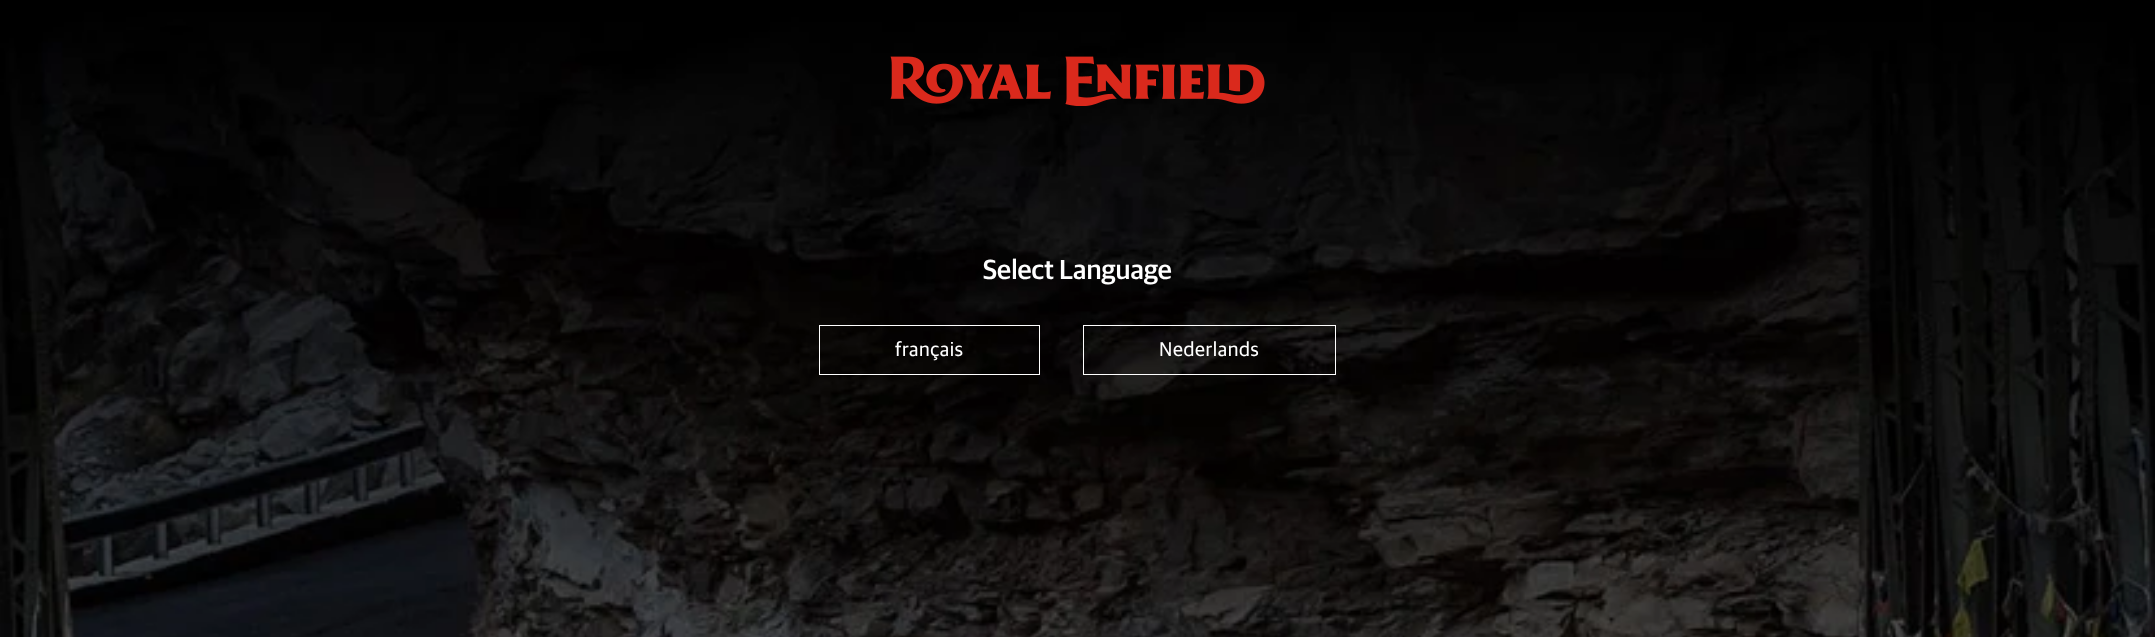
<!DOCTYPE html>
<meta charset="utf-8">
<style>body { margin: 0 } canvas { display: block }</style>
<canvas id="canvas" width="2155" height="637"></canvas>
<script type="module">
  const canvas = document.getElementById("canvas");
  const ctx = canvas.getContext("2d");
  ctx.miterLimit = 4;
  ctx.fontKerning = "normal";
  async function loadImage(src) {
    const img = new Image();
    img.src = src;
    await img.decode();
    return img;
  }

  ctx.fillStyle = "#ffffff";
  ctx.fillRect(0, 0, 2155, 637);
  ctx.drawImage(await loadImage("img1.png"), 0, 0, 2155, 637);
  ctx.drawImage(await loadImage("img2.png"), 890, 56, 375, 50);
  ctx.font = "500 27.5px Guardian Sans";
  ctx.fillText("Select Language", 983, 279);
  ctx.strokeStyle = "#ffffff";
  ctx.strokeRect(819.5, 325.5, 220, 49);
  ctx.letterSpacing = "0.6px";
  ctx.font = "20px Guardian Sans";
  ctx.fillText("français", 895, 356);
  ctx.strokeRect(1083.5, 325.5, 252, 49);
  ctx.fillText("Nederlands", 1159, 356);
</script>
